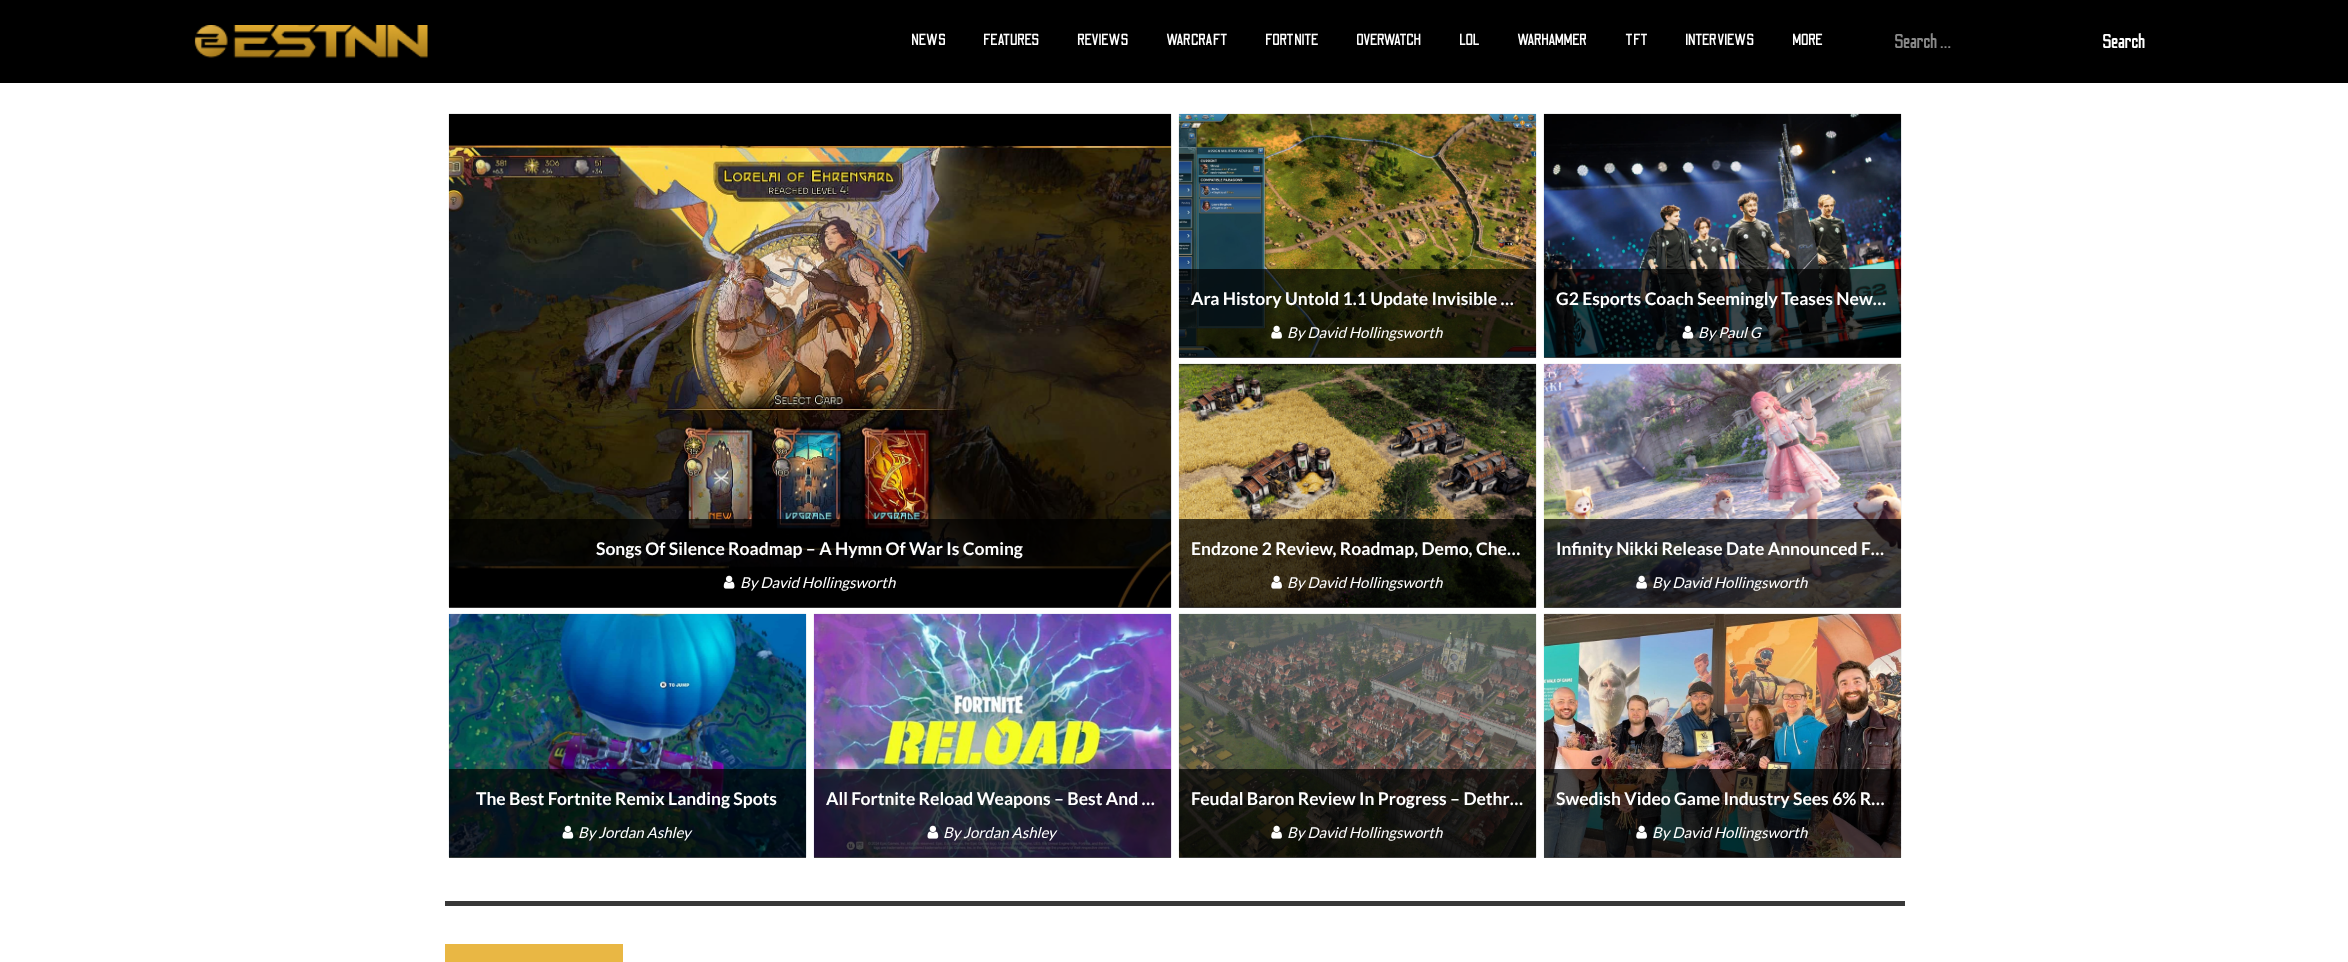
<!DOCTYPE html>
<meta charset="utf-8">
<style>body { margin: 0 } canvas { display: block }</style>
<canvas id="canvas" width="2348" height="962"></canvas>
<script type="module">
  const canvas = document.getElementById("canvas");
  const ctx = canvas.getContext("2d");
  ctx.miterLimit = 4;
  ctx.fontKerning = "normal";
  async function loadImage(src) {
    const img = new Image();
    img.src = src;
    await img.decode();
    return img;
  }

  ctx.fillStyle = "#ffffff";
  ctx.fillRect(0, 0, 2348, 962);
  ctx.fillStyle = "#000000";
  ctx.fillRect(0, 0, 2348, 83);
  ctx.drawImage(await loadImage("img1.png"), 194, 25, 234, 33);
  ctx.font = "16.25px Odibee Sans";
  ctx.fillStyle = "#ffffff";
  ctx.fillText("NEWS", 911, 45);
  ctx.fillText("FEATURES", 983, 45);
  ctx.fillText("REVIEWS", 1077, 45);
  ctx.fillText("WARCRAFT", 1166, 45);
  ctx.fillText("FORTNITE", 1265, 45);
  ctx.fillText("OVERWATCH", 1356, 45);
  ctx.fillText("LOL", 1459, 45);
  ctx.fillText("WARHAMMER", 1517, 45);
  ctx.fillText("TFT", 1625, 45);
  ctx.fillText("INTERVIEWS", 1685, 45);
  ctx.fillText("MORE", 1792, 45);
  ctx.font = "20px Odibee Sans";
  ctx.fillStyle = "#898989";
  ctx.fillText("Search …", 1894, 48);
  ctx.fillStyle = "#ffffff";
  ctx.fillText("Search", 2102, 48);
  ctx.fillStyle = "#f1f1f1";
  ctx.fillRect(1179, 357, 357, 1);
  ctx.drawImage(await loadImage("img2.png"), 1178, 113, 359, 245);
  ctx.fillStyle = "rgba(0, 0, 0, 0.7)";
  ctx.fillRect(1179, 269, 357, 89);
  ctx.font = "bold 17.5px Lato";
  ctx.fillStyle = "#ffffff";
  ctx.fillText("Ara History Untold 1.1 Update Invisible …", 1191, 305);
  ctx.drawImage(await loadImage("img3.png"), 1271, 325, 11, 14);
  ctx.font = "italic 15px Lato";
  ctx.fillText("By David Hollingsworth", 1287, 338);
  ctx.fillStyle = "#f1f1f1";
  ctx.fillRect(1544, 357, 357, 1);
  ctx.drawImage(await loadImage("img4.png"), 1543, 113, 359, 245);
  ctx.fillStyle = "rgba(0, 0, 0, 0.7)";
  ctx.fillRect(1544, 269, 357, 89);
  ctx.font = "bold 17.5px Lato";
  ctx.fillStyle = "#ffffff";
  ctx.fillText("G2 Esports Coach Seemingly Teases New…", 1556, 305);
  ctx.drawImage(await loadImage("img5.png"), 1682, 325, 12, 14);
  ctx.font = "italic 15px Lato";
  ctx.fillText("By Paul G", 1698, 338);
  ctx.fillStyle = "#f1f1f1";
  ctx.fillRect(449, 607, 722, 1);
  ctx.drawImage(await loadImage("img6.png"), 448, 113, 724, 495);
  ctx.fillStyle = "rgba(0, 0, 0, 0.7)";
  ctx.fillRect(449, 519, 722, 89);
  ctx.font = "bold 17.5px Lato";
  ctx.fillStyle = "#ffffff";
  ctx.fillText("Songs Of Silence Roadmap – A Hymn Of War Is Coming", 596, 555);
  ctx.drawImage(await loadImage("img7.png"), 723, 575, 12, 14);
  ctx.font = "italic 15px Lato";
  ctx.fillText("By David Hollingsworth", 740, 588);
  ctx.fillStyle = "#f1f1f1";
  ctx.fillRect(1179, 607, 357, 1);
  ctx.drawImage(await loadImage("img8.png"), 1178, 363, 359, 245);
  ctx.fillStyle = "rgba(0, 0, 0, 0.7)";
  ctx.fillRect(1179, 519, 357, 89);
  ctx.font = "bold 17.5px Lato";
  ctx.fillStyle = "#ffffff";
  ctx.fillText("Endzone 2 Review, Roadmap, Demo, Che…", 1191, 555);
  ctx.drawImage(await loadImage("img9.png"), 1271, 575, 11, 14);
  ctx.font = "italic 15px Lato";
  ctx.fillText("By David Hollingsworth", 1287, 588);
  ctx.fillStyle = "#f1f1f1";
  ctx.fillRect(1544, 607, 357, 1);
  ctx.drawImage(await loadImage("img10.png"), 1543, 363, 359, 245);
  ctx.fillStyle = "rgba(0, 0, 0, 0.7)";
  ctx.fillRect(1544, 519, 357, 89);
  ctx.font = "bold 17.5px Lato";
  ctx.fillStyle = "#ffffff";
  ctx.fillText("Infinity Nikki Release Date Announced F…", 1556, 555);
  ctx.drawImage(await loadImage("img11.png"), 1636, 575, 11, 14);
  ctx.font = "italic 15px Lato";
  ctx.fillText("By David Hollingsworth", 1652, 588);
  ctx.fillStyle = "#f1f1f1";
  ctx.fillRect(449, 857, 357, 1);
  ctx.drawImage(await loadImage("img12.png"), 448, 613, 359, 245);
  ctx.fillStyle = "rgba(0, 0, 0, 0.7)";
  ctx.fillRect(449, 769, 357, 89);
  ctx.font = "bold 17.5px Lato";
  ctx.fillStyle = "#ffffff";
  ctx.fillText("The Best Fortnite Remix Landing Spots", 476, 805);
  ctx.drawImage(await loadImage("img13.png"), 562, 825, 12, 14);
  ctx.font = "italic 15px Lato";
  ctx.fillText("By Jordan Ashley", 578, 838);
  ctx.fillStyle = "#f1f1f1";
  ctx.fillRect(814, 857, 357, 1);
  ctx.drawImage(await loadImage("img14.png"), 813, 613, 359, 245);
  ctx.fillStyle = "rgba(0, 0, 0, 0.7)";
  ctx.fillRect(814, 769, 357, 89);
  ctx.font = "bold 17.5px Lato";
  ctx.fillStyle = "#ffffff";
  ctx.fillText("All Fortnite Reload Weapons – Best And …", 826, 805);
  ctx.drawImage(await loadImage("img15.png"), 927, 825, 12, 14);
  ctx.font = "italic 15px Lato";
  ctx.fillText("By Jordan Ashley", 943, 838);
  ctx.fillStyle = "#f1f1f1";
  ctx.fillRect(1179, 857, 357, 1);
  ctx.drawImage(await loadImage("img16.png"), 1178, 613, 359, 245);
  ctx.fillStyle = "rgba(0, 0, 0, 0.7)";
  ctx.fillRect(1179, 769, 357, 89);
  ctx.font = "bold 17.5px Lato";
  ctx.fillStyle = "#ffffff";
  ctx.fillText("Feudal Baron Review In Progress – Dethr…", 1191, 805);
  ctx.drawImage(await loadImage("img17.png"), 1271, 825, 11, 14);
  ctx.font = "italic 15px Lato";
  ctx.fillText("By David Hollingsworth", 1287, 838);
  ctx.fillStyle = "#f1f1f1";
  ctx.fillRect(1544, 857, 357, 1);
  ctx.drawImage(await loadImage("img18.png"), 1543, 613, 359, 245);
  ctx.fillStyle = "rgba(0, 0, 0, 0.7)";
  ctx.fillRect(1544, 769, 357, 89);
  ctx.font = "bold 17.5px Lato";
  ctx.fillStyle = "#ffffff";
  ctx.fillText("Swedish Video Game Industry Sees 6% R…", 1556, 805);
  ctx.drawImage(await loadImage("img19.png"), 1636, 825, 11, 14);
  ctx.font = "italic 15px Lato";
  ctx.fillText("By David Hollingsworth", 1652, 838);
  ctx.fillStyle = "#383838";
  ctx.fillRect(445, 901, 1460, 5);
  ctx.fillStyle = "#e9b744";
  ctx.fillRect(445, 944, 178, 18);
</script>
